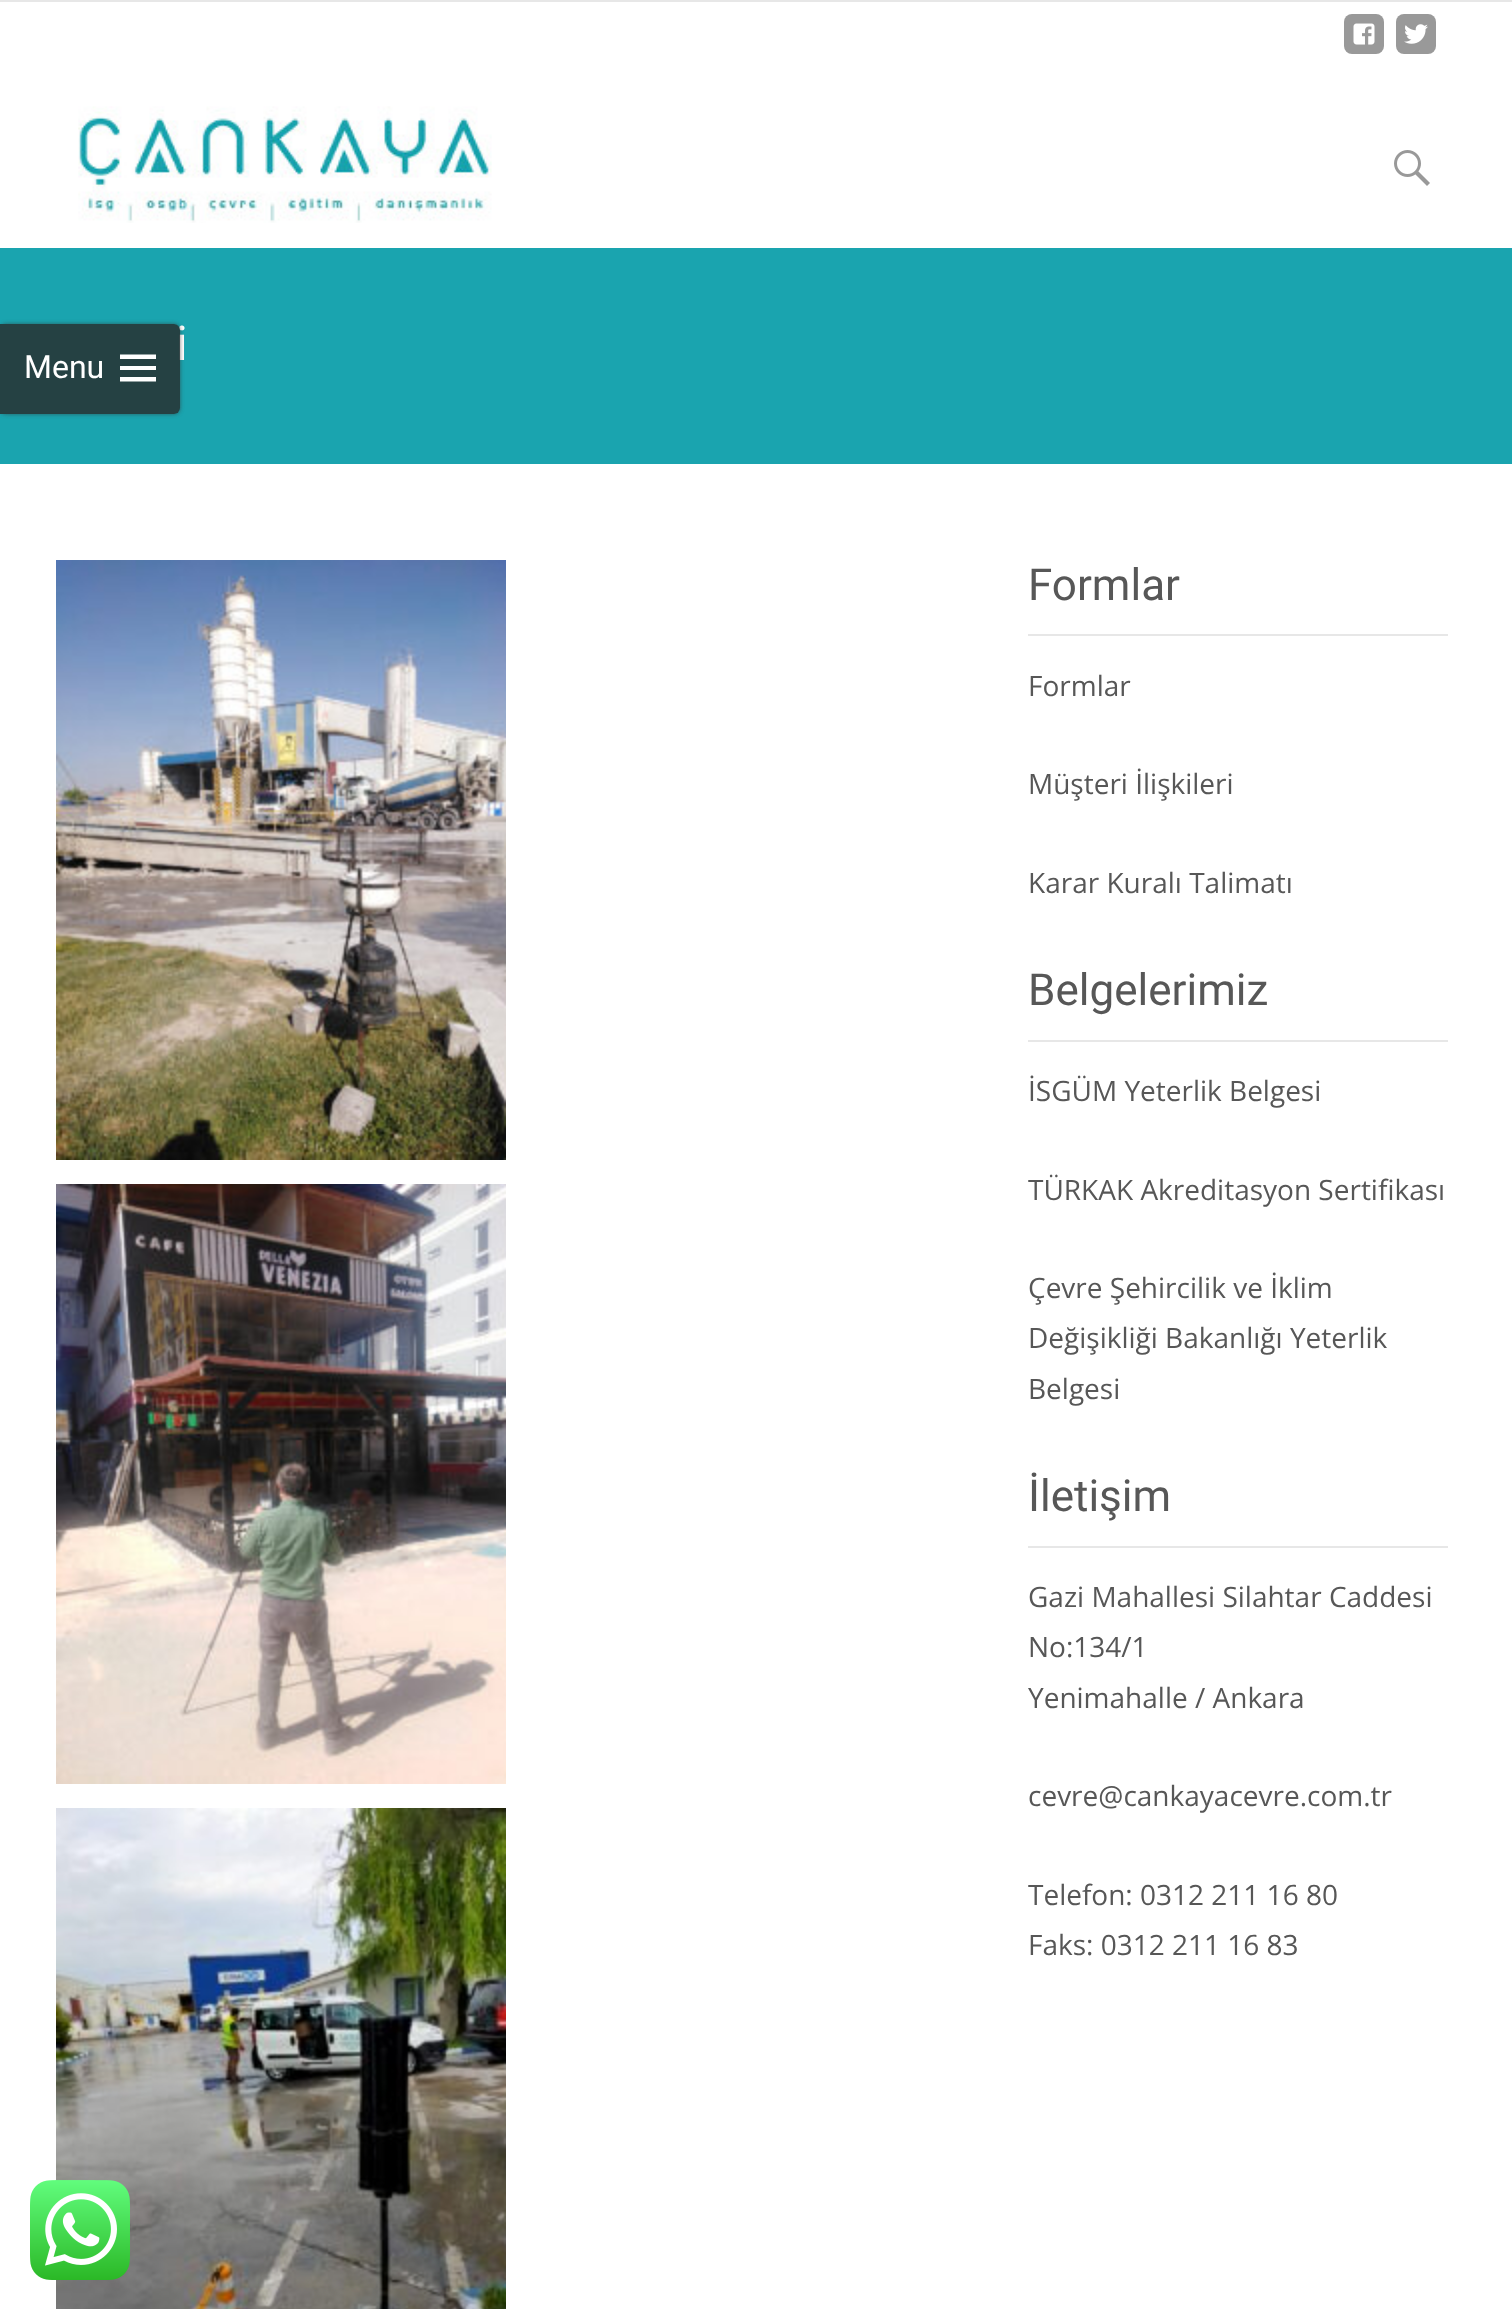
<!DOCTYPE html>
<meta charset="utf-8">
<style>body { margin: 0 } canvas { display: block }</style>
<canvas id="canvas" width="1512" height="2309"></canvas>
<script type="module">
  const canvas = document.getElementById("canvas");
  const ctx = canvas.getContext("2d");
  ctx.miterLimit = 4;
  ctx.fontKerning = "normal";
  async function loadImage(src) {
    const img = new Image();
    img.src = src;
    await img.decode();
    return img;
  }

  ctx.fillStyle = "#ffffff";
  ctx.fillRect(0, 0, 1512, 2309);
  ctx.fillStyle = "#e7e7e7";
  ctx.fillRect(0, 0, 1512, 2);
  ctx.fillStyle = "#999999";
  ctx.beginPath();
  ctx.roundRect(1344, 14, 40, 40, 8);
  ctx.fill();
  ctx.drawImage(await loadImage("img1.png"), 1353, 23, 22, 22);
  ctx.beginPath();
  ctx.roundRect(1396, 14, 40, 40, 8);
  ctx.fill();
  ctx.drawImage(await loadImage("img2.png"), 1404, 24, 24, 20);
  ctx.fillStyle = "#1aa4af";
  ctx.fillRect(0, 248, 1512, 216);
  ctx.font = "48px Roboto";
  ctx.fillStyle = "#ffffff";
  ctx.fillText("i", 176, 360);
  ctx.drawImage(await loadImage("img3.png"), 78, 106, 414, 117);
  ctx.drawImage(await loadImage("img4.png"), 1394, 150, 36, 36);
  ctx.save();
  ctx.beginPath();
  ctx.moveTo(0, 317);
  ctx.lineTo(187, 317);
  ctx.lineTo(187, 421);
  ctx.lineTo(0, 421);
  ctx.closePath();
  ctx.moveTo(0, 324);
  ctx.lineTo(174, 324);
  ctx.bezierCurveTo(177.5, 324, 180, 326.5, 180, 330);
  ctx.lineTo(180, 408);
  ctx.bezierCurveTo(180, 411.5, 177.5, 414, 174, 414);
  ctx.lineTo(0, 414);
  ctx.closePath();
  ctx.clip("evenodd");
  ctx.fillStyle = "rgba(50, 50, 50, 0.64)";
  ctx.filter = "blur(2px)";
  ctx.beginPath();
  ctx.roundRect(0, 324, 180, 90, 6);
  ctx.fill();
  ctx.filter = "none";
  ctx.restore();
  ctx.fillStyle = "rgba(40, 40, 40, 0.8)";
  ctx.beginPath();
  ctx.roundRect(0, 324, 180, 90, [0, 6, 6, 0]);
  ctx.fill();
  ctx.font = "32px Roboto";
  ctx.fillStyle = "#ffffff";
  ctx.fillText("Menu", 24, 378);
  ctx.beginPath();
  ctx.moveTo(120, 381.5);
  ctx.lineTo(120, 377);
  ctx.lineTo(156, 377);
  ctx.lineTo(156, 381.5);
  ctx.closePath();
  ctx.moveTo(120, 370);
  ctx.lineTo(120, 366);
  ctx.lineTo(156, 366);
  ctx.lineTo(156, 370);
  ctx.closePath();
  ctx.moveTo(120, 359);
  ctx.lineTo(120, 354.5);
  ctx.lineTo(156, 354.5);
  ctx.lineTo(156, 359);
  ctx.closePath();
  ctx.fill();
  ctx.drawImage(await loadImage("img5.png"), 56, 560, 450, 600);
  ctx.drawImage(await loadImage("img6.png"), 56, 1184, 450, 600);
  ctx.drawImage(await loadImage("img7.png"), 56, 1808, 450, 501);
  ctx.fillStyle = "#e7e7e7";
  ctx.fillRect(1028, 634, 420, 2);
  ctx.font = "44px Roboto";
  ctx.fillStyle = "#575757";
  ctx.fillText("Formlar", 1028, 600);
  ctx.font = "28px Open Sans";
  ctx.fillText("Formlar", 1028, 696);
  ctx.fillText("Müşteri İlişkileri", 1028, 794);
  ctx.fillText("Karar Kuralı Talimatı", 1028, 893);
  ctx.fillStyle = "#e7e7e7";
  ctx.fillRect(1028, 1040, 420, 2);
  ctx.font = "44px Roboto";
  ctx.fillStyle = "#575757";
  ctx.fillText("Belgelerimiz", 1028, 1005);
  ctx.font = "28px Open Sans";
  ctx.fillText("İSGÜM Yeterlik Belgesi", 1028, 1101);
  ctx.fillText("TÜRKAK Akreditasyon Sertifikası", 1028, 1200);
  ctx.fillText("Çevre Şehircilik ve İklim", 1028, 1298);
  ctx.fillText("Değişikliği Bakanlığı Yeterlik", 1028, 1348);
  ctx.fillText("Belgesi", 1028, 1399);
  ctx.fillStyle = "#e7e7e7";
  ctx.fillRect(1028, 1546, 420, 2);
  ctx.font = "44px Roboto";
  ctx.fillStyle = "#575757";
  ctx.fillText("İletişim", 1028, 1511);
  ctx.font = "28px Open Sans";
  ctx.fillText("Gazi Mahallesi Silahtar Caddesi", 1028, 1607);
  ctx.fillText("No:134/1", 1028, 1657);
  ctx.fillText("Yenimahalle / Ankara", 1028, 1708);
  ctx.fillText("cevre@cankayacevre.com.tr", 1028, 1806);
  ctx.fillText("Telefon: 0312 211 16 80", 1028, 1905);
  ctx.fillText("Faks: 0312 211 16 83", 1028, 1955);
  ctx.drawImage(await loadImage("img8.png"), 30, 2180, 100, 100);
</script>
